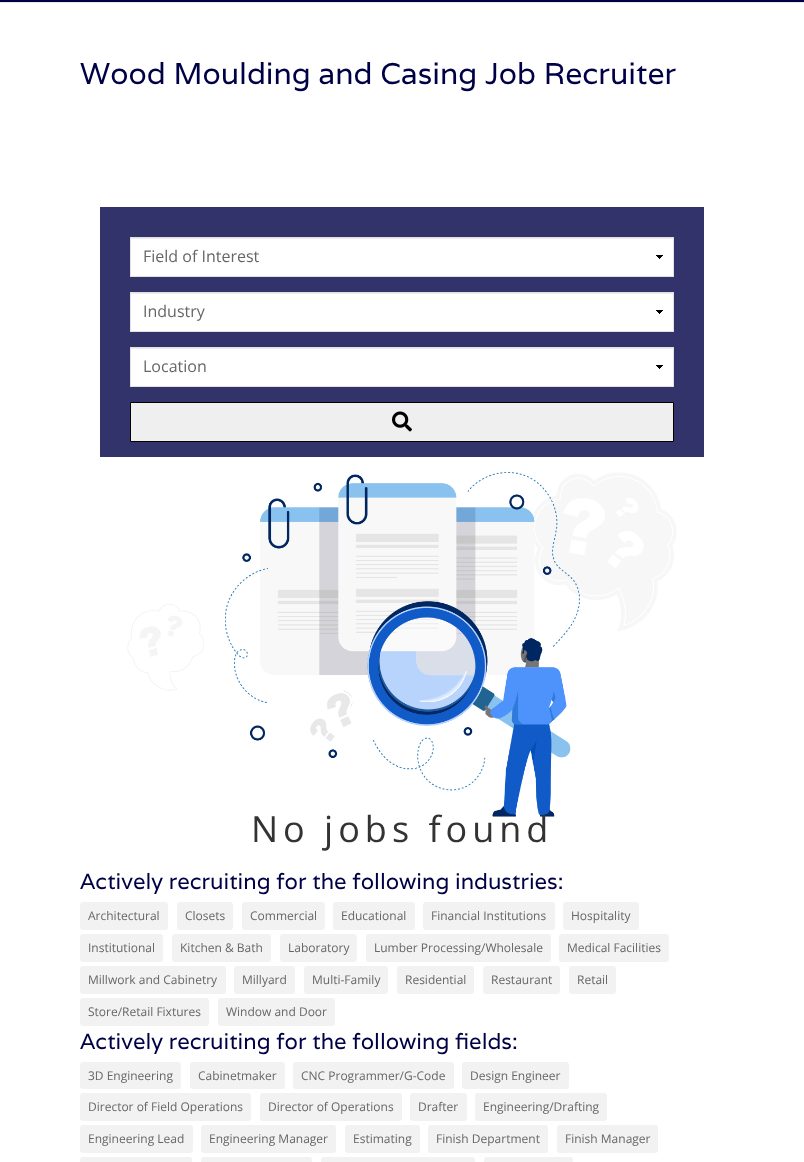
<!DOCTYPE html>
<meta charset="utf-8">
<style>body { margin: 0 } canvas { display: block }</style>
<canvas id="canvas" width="804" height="1162"></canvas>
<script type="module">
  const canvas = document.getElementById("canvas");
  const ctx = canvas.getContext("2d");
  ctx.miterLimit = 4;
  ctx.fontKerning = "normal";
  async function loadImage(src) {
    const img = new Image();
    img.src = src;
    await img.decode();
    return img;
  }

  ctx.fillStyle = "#ffffff";
  ctx.fillRect(0, 0, 804, 1162);
  ctx.fillStyle = "#e6e6e6";
  ctx.fillRect(0, 2, 804, 1);
  ctx.fillStyle = "#000046";
  ctx.fillRect(0, 0, 804, 2);
  ctx.font = "30px Varela";
  ctx.fillText("Wood Moulding and Casing Job Recruiter", 80, 84);
  ctx.fillStyle = "#33336b";
  ctx.fillRect(100, 207, 604, 250);
  ctx.fillStyle = "#ffffff";
  ctx.fillRect(131, 239, 542, 37);
  ctx.drawImage(await loadImage("img1.png"), 656, 255, 7, 4);
  ctx.fillStyle = "#ececec";
  ctx.fillRect(131, 238, 542, 1);
  ctx.strokeStyle = "#e1e1e1";
  ctx.strokeRect(130.5, 237.5, 543, 39);
  ctx.font = "16px Open Sans";
  ctx.fillStyle = "#666666";
  ctx.fillText("Field of Interest", 143, 262);
  ctx.fillStyle = "#ffffff";
  ctx.fillRect(131, 294, 542, 37);
  ctx.drawImage(await loadImage("img1.png"), 656, 310, 7, 4);
  ctx.fillStyle = "#ececec";
  ctx.fillRect(131, 293, 542, 1);
  ctx.strokeRect(130.5, 292.5, 543, 39);
  ctx.fillStyle = "#666666";
  ctx.fillText("Industry", 143, 317);
  ctx.fillStyle = "#ffffff";
  ctx.fillRect(131, 349, 542, 37);
  ctx.drawImage(await loadImage("img1.png"), 656, 365, 7, 4);
  ctx.fillStyle = "#ececec";
  ctx.fillRect(131, 348, 542, 1);
  ctx.strokeRect(130.5, 347.5, 543, 39);
  ctx.fillStyle = "#666666";
  ctx.fillText("Location", 143, 372);
  ctx.fillStyle = "#efefef";
  ctx.beginPath();
  ctx.rect(130.5, 402.5, 543, 39);
  ctx.fill();
  ctx.strokeStyle = "#000000";
  ctx.stroke();
  ctx.drawImage(await loadImage("img2.png"), 392, 411, 20, 21);
  ctx.drawImage(await loadImage("img3.png"), 127, 472, 550, 345);
  ctx.letterSpacing = "5px";
  ctx.font = "36px Open Sans";
  ctx.fillStyle = "#333333";
  ctx.fillText("No jobs found", 251, 842);
  ctx.letterSpacing = "0px";
  ctx.font = "22px Varela";
  ctx.fillStyle = "#000046";
  ctx.fillText("Actively recruiting for the following industries:", 80, 889);
  ctx.fillStyle = "#f2f2f2";
  ctx.beginPath();
  ctx.roundRect(80, 902, 88, 28, 3);
  ctx.fill();
  ctx.font = "12px Open Sans";
  ctx.fillStyle = "#666666";
  ctx.fillText("Architectural", 88, 920);
  ctx.fillStyle = "#f2f2f2";
  ctx.beginPath();
  ctx.roundRect(177, 902, 56, 28, 3);
  ctx.fill();
  ctx.fillStyle = "#666666";
  ctx.fillText("Closets", 185, 920);
  ctx.fillStyle = "#f2f2f2";
  ctx.beginPath();
  ctx.roundRect(242, 902, 83, 28, 3);
  ctx.fill();
  ctx.fillStyle = "#666666";
  ctx.fillText("Commercial", 250, 920);
  ctx.fillStyle = "#f2f2f2";
  ctx.beginPath();
  ctx.roundRect(333, 902, 82, 28, 3);
  ctx.fill();
  ctx.fillStyle = "#666666";
  ctx.fillText("Educational", 341, 920);
  ctx.fillStyle = "#f2f2f2";
  ctx.beginPath();
  ctx.roundRect(423, 902, 132, 28, 3);
  ctx.fill();
  ctx.fillStyle = "#666666";
  ctx.fillText("Financial Institutions", 431, 920);
  ctx.fillStyle = "#f2f2f2";
  ctx.beginPath();
  ctx.roundRect(563, 902, 76, 28, 3);
  ctx.fill();
  ctx.fillStyle = "#666666";
  ctx.fillText("Hospitality", 571, 920);
  ctx.fillStyle = "#f2f2f2";
  ctx.beginPath();
  ctx.roundRect(80, 934, 83, 28, 3);
  ctx.fill();
  ctx.fillStyle = "#666666";
  ctx.fillText("Institutional", 88, 952);
  ctx.fillStyle = "#f2f2f2";
  ctx.beginPath();
  ctx.roundRect(172, 934, 99, 28, 3);
  ctx.fill();
  ctx.fillStyle = "#666666";
  ctx.fillText("Kitchen & Bath", 180, 952);
  ctx.fillStyle = "#f2f2f2";
  ctx.beginPath();
  ctx.roundRect(280, 934, 77, 28, 3);
  ctx.fill();
  ctx.fillStyle = "#666666";
  ctx.fillText("Laboratory", 288, 952);
  ctx.fillStyle = "#f2f2f2";
  ctx.beginPath();
  ctx.roundRect(366, 934, 185, 28, 3);
  ctx.fill();
  ctx.fillStyle = "#666666";
  ctx.fillText("Lumber Processing/Wholesale", 374, 952);
  ctx.fillStyle = "#f2f2f2";
  ctx.beginPath();
  ctx.roundRect(559, 934, 110, 28, 3);
  ctx.fill();
  ctx.fillStyle = "#666666";
  ctx.fillText("Medical Facilities", 567, 952);
  ctx.fillStyle = "#f2f2f2";
  ctx.beginPath();
  ctx.roundRect(80, 966, 146, 28, 3);
  ctx.fill();
  ctx.fillStyle = "#666666";
  ctx.fillText("Millwork and Cabinetry", 88, 984);
  ctx.fillStyle = "#f2f2f2";
  ctx.beginPath();
  ctx.roundRect(234, 966, 61, 28, 3);
  ctx.fill();
  ctx.fillStyle = "#666666";
  ctx.fillText("Millyard", 242, 984);
  ctx.fillStyle = "#f2f2f2";
  ctx.beginPath();
  ctx.roundRect(304, 966, 84, 28, 3);
  ctx.fill();
  ctx.fillStyle = "#666666";
  ctx.fillText("Multi-Family", 312, 984);
  ctx.fillStyle = "#f2f2f2";
  ctx.beginPath();
  ctx.roundRect(397, 966, 77, 28, 3);
  ctx.fill();
  ctx.fillStyle = "#666666";
  ctx.fillText("Residential", 405, 984);
  ctx.fillStyle = "#f2f2f2";
  ctx.beginPath();
  ctx.roundRect(483, 966, 77, 28, 3);
  ctx.fill();
  ctx.fillStyle = "#666666";
  ctx.fillText("Restaurant", 491, 984);
  ctx.fillStyle = "#f2f2f2";
  ctx.beginPath();
  ctx.roundRect(569, 966, 47, 28, 3);
  ctx.fill();
  ctx.fillStyle = "#666666";
  ctx.fillText("Retail", 577, 984);
  ctx.fillStyle = "#f2f2f2";
  ctx.beginPath();
  ctx.roundRect(80, 998, 129, 28, 3);
  ctx.fill();
  ctx.fillStyle = "#666666";
  ctx.fillText("Store/Retail Fixtures", 88, 1016);
  ctx.fillStyle = "#f2f2f2";
  ctx.beginPath();
  ctx.roundRect(218, 998, 117, 28, 3);
  ctx.fill();
  ctx.fillStyle = "#666666";
  ctx.fillText("Window and Door", 226, 1016);
  ctx.font = "22px Varela";
  ctx.fillStyle = "#000046";
  ctx.fillText("Actively recruiting for the following fields:", 80, 1049);
  ctx.fillStyle = "#f2f2f2";
  ctx.beginPath();
  ctx.roundRect(80, 1062, 101, 27, 3);
  ctx.fill();
  ctx.font = "12px Open Sans";
  ctx.fillStyle = "#666666";
  ctx.fillText("3D Engineering", 88, 1080);
  ctx.fillStyle = "#f2f2f2";
  ctx.beginPath();
  ctx.roundRect(190, 1062, 95, 27, 3);
  ctx.fill();
  ctx.fillStyle = "#666666";
  ctx.fillText("Cabinetmaker", 198, 1080);
  ctx.fillStyle = "#f2f2f2";
  ctx.beginPath();
  ctx.roundRect(293, 1062, 161, 27, 3);
  ctx.fill();
  ctx.fillStyle = "#666666";
  ctx.fillText("CNC Programmer/G-Code", 301, 1080);
  ctx.fillStyle = "#f2f2f2";
  ctx.beginPath();
  ctx.roundRect(462, 1062, 107, 27, 3);
  ctx.fill();
  ctx.fillStyle = "#666666";
  ctx.fillText("Design Engineer", 470, 1080);
  ctx.fillStyle = "#f2f2f2";
  ctx.beginPath();
  ctx.roundRect(80, 1093, 171, 28, 3);
  ctx.fill();
  ctx.fillStyle = "#666666";
  ctx.fillText("Director of Field Operations", 88, 1111);
  ctx.fillStyle = "#f2f2f2";
  ctx.beginPath();
  ctx.roundRect(260, 1093, 142, 28, 3);
  ctx.fill();
  ctx.fillStyle = "#666666";
  ctx.fillText("Director of Operations", 268, 1111);
  ctx.fillStyle = "#f2f2f2";
  ctx.beginPath();
  ctx.roundRect(410, 1093, 57, 28, 3);
  ctx.fill();
  ctx.fillStyle = "#666666";
  ctx.fillText("Drafter", 418, 1111);
  ctx.fillStyle = "#f2f2f2";
  ctx.beginPath();
  ctx.roundRect(475, 1093, 132, 28, 3);
  ctx.fill();
  ctx.fillStyle = "#666666";
  ctx.fillText("Engineering/Drafting", 483, 1111);
  ctx.fillStyle = "#f2f2f2";
  ctx.beginPath();
  ctx.roundRect(80, 1125, 113, 28, 3);
  ctx.fill();
  ctx.fillStyle = "#666666";
  ctx.fillText("Engineering Lead", 88, 1143);
  ctx.fillStyle = "#f2f2f2";
  ctx.beginPath();
  ctx.roundRect(201, 1125, 135, 28, 3);
  ctx.fill();
  ctx.fillStyle = "#666666";
  ctx.fillText("Engineering Manager", 209, 1143);
  ctx.fillStyle = "#f2f2f2";
  ctx.beginPath();
  ctx.roundRect(345, 1125, 75, 28, 3);
  ctx.fill();
  ctx.fillStyle = "#666666";
  ctx.fillText("Estimating", 353, 1143);
  ctx.fillStyle = "#f2f2f2";
  ctx.beginPath();
  ctx.roundRect(428, 1125, 120, 28, 3);
  ctx.fill();
  ctx.fillStyle = "#666666";
  ctx.fillText("Finish Department", 436, 1143);
  ctx.fillStyle = "#f2f2f2";
  ctx.beginPath();
  ctx.roundRect(557, 1125, 101, 28, 3);
  ctx.fill();
  ctx.fillStyle = "#666666";
  ctx.fillText("Finish Manager", 565, 1143);
  ctx.fillStyle = "#f2f2f2";
  ctx.beginPath();
  ctx.roundRect(80, 1157, 112, 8, 3);
  ctx.fill();
  ctx.beginPath();
  ctx.roundRect(201, 1157, 111, 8, 3);
  ctx.fill();
  ctx.beginPath();
  ctx.roundRect(321, 1157, 154, 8, 3);
  ctx.fill();
  ctx.beginPath();
  ctx.roundRect(484, 1157, 89, 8, 3);
  ctx.fill();
</script>
